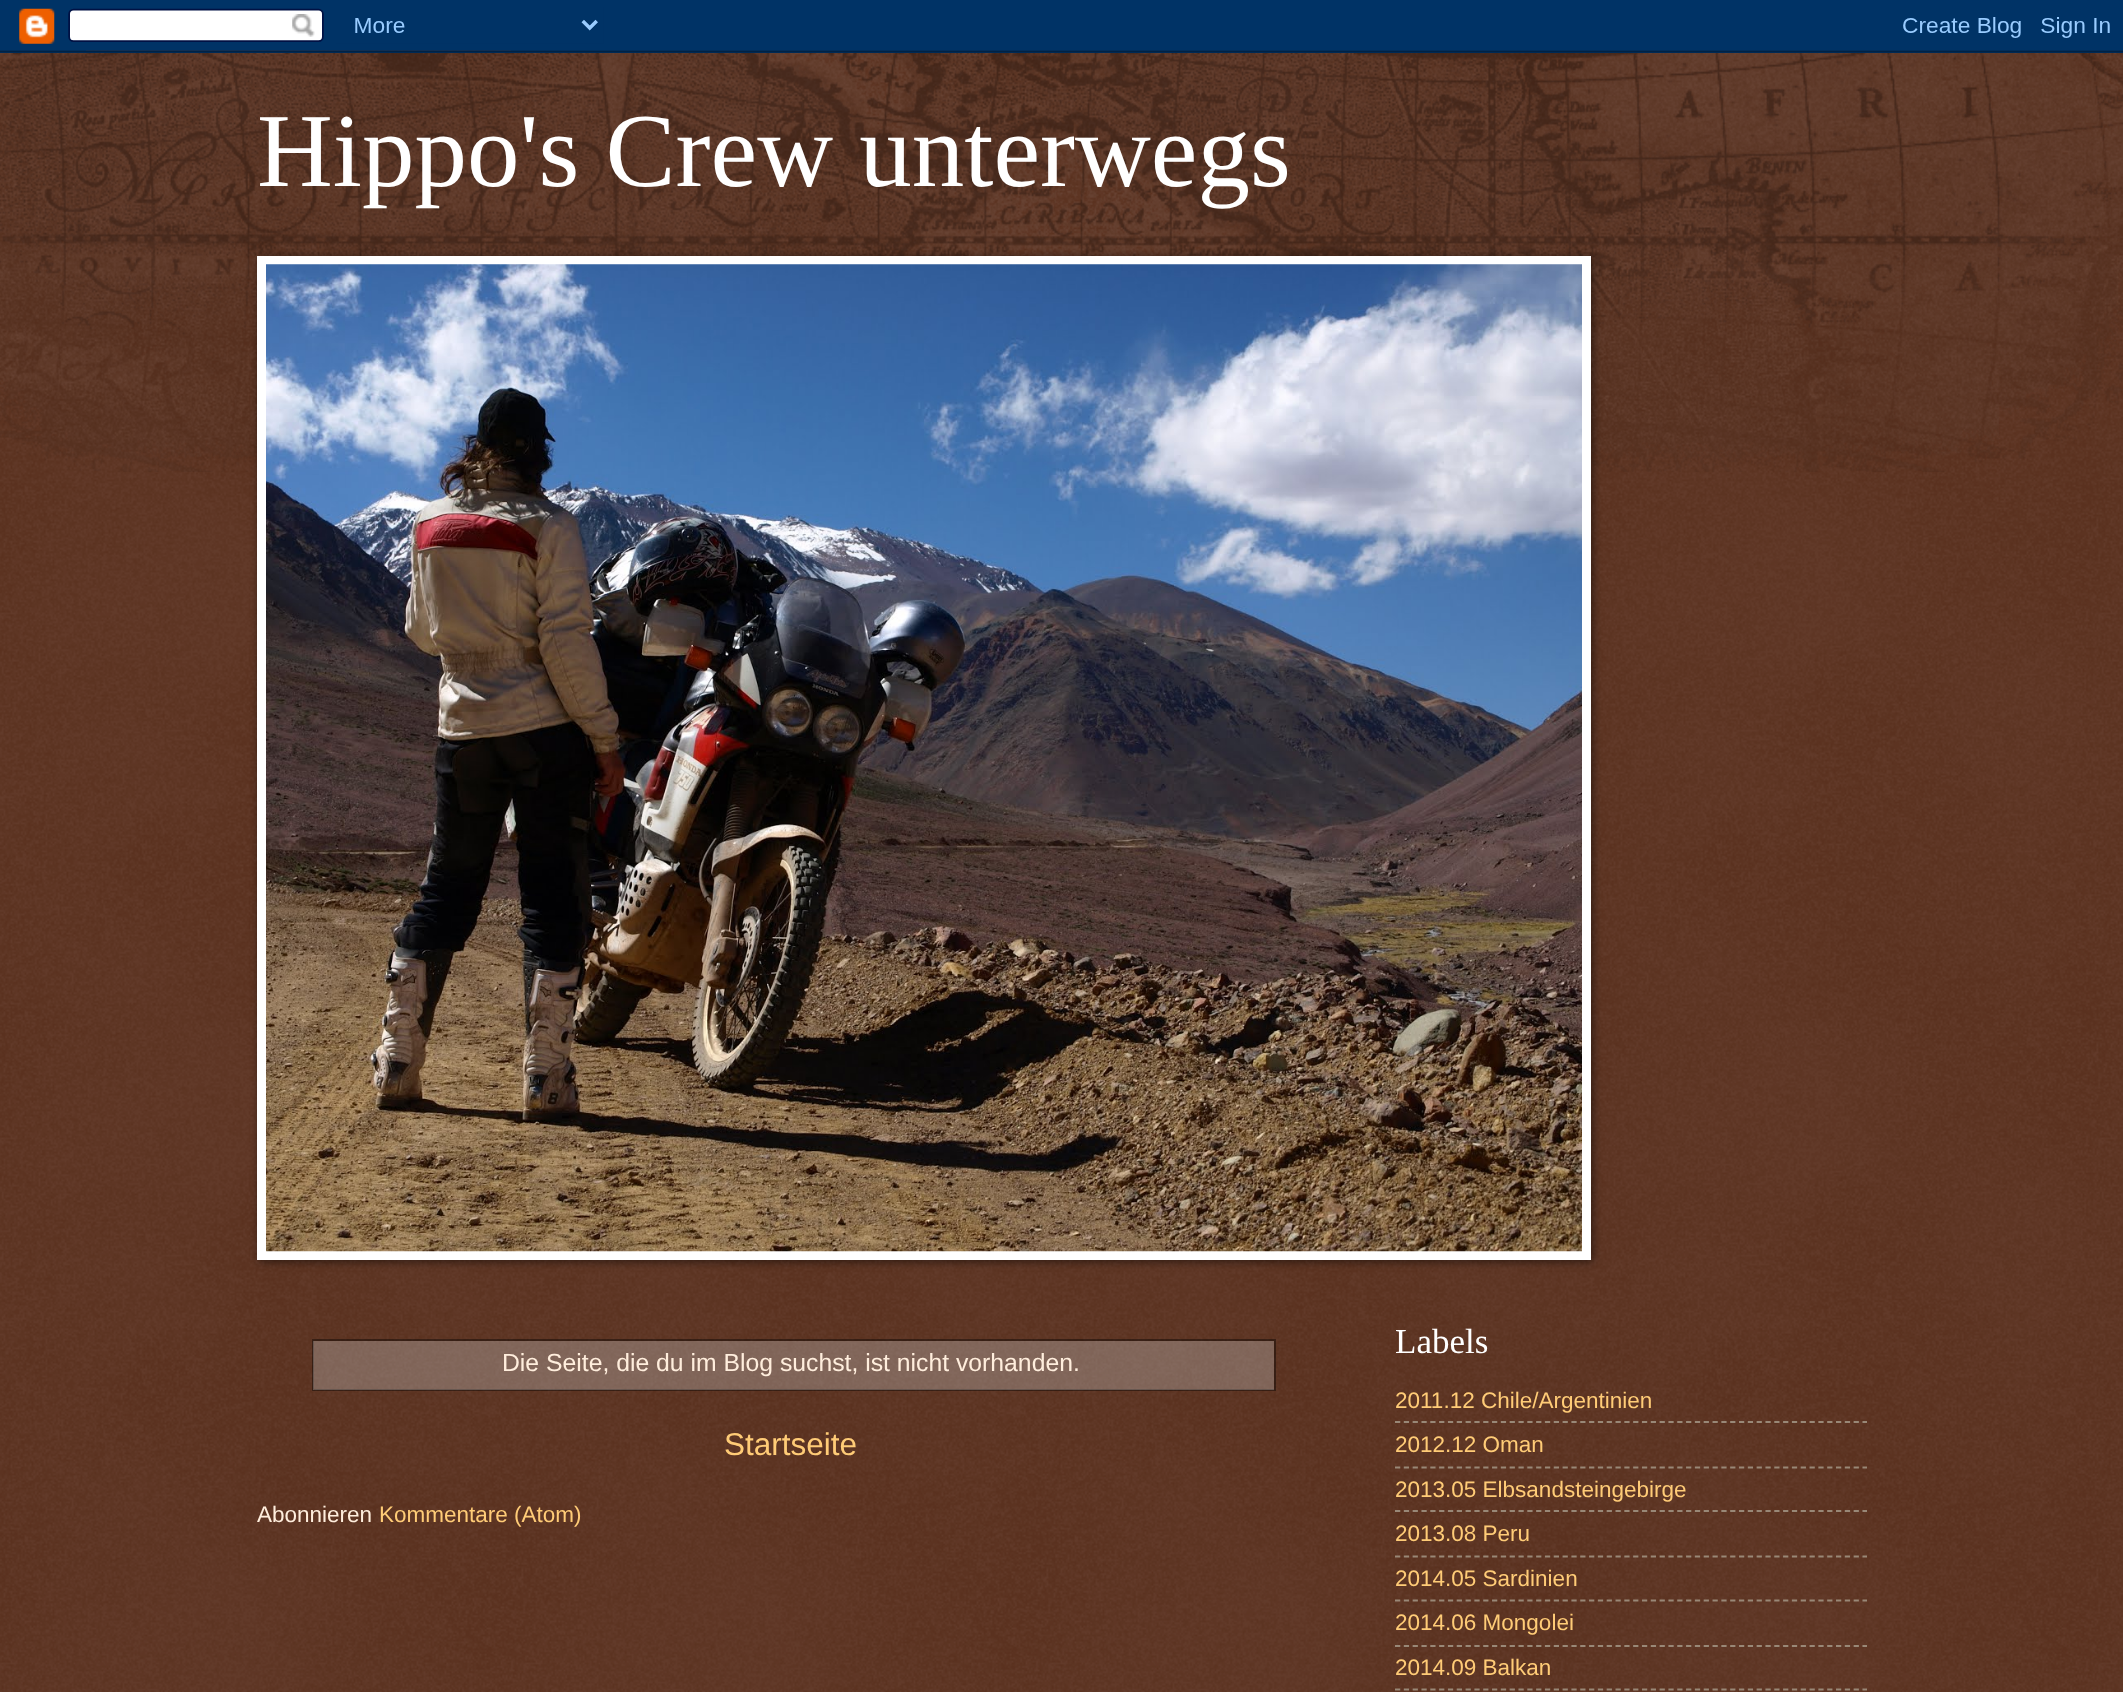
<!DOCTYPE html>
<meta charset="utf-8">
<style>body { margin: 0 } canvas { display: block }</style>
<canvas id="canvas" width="2123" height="1692"></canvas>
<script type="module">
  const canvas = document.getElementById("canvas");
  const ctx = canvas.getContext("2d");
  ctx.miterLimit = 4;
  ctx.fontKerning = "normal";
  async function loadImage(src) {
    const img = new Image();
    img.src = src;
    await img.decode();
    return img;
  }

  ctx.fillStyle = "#441500";
  ctx.fillRect(0, 0, 2123, 1692);
  ctx.drawImage(await loadImage("img1.png"), 0, 50, 2123, 1642);
  ctx.drawImage(await loadImage("img2.png"), 0, 0, 2123, 53);
  ctx.drawImage(await loadImage("img3.png"), 0, 53, 2123, 419);
  ctx.font = "105px Liberation Serif";
  ctx.fillStyle = "#ffffff";
  ctx.fillText("Hippo's Crew unterwegs", 257, 186);
  ctx.fillStyle = "rgba(0, 0, 0, 0.5)";
  ctx.filter = "blur(4.5px)";
  ctx.beginPath();
  ctx.rect(259, 257, 1334, 1005);
  ctx.fill();
  ctx.filter = "none";
  ctx.fillStyle = "#ffffff";
  ctx.fillRect(257, 256, 1334, 1004);
  ctx.drawImage(await loadImage("img4.png"), 266, 264, 1316, 988);
  ctx.strokeStyle = "rgba(0, 0, 0, 0.4)";
  ctx.lineWidth = 2;
  ctx.strokeRect(313, 1340, 962, 50);
  ctx.fillStyle = "rgba(204, 204, 204, 0.32)";
  ctx.fillRect(313, 1341, 961, 49);
  ctx.font = "24.75px Liberation Sans";
  ctx.fillStyle = "#ffeedd";
  ctx.fillText("Die Seite, die du im Blog suchst, ist nicht vorhanden.", 502, 1371);
  ctx.font = "31.5px Liberation Sans";
  ctx.fillStyle = "#ffcc77";
  ctx.fillText("Startseite", 724, 1455);
  ctx.font = "22.5px Liberation Sans";
  ctx.fillStyle = "#ffeedd";
  ctx.fillText("Abonnieren", 257, 1522);
  ctx.fillStyle = "#ffcc77";
  ctx.fillText("Kommentare (Atom)", 379, 1522);
  ctx.font = "35px Liberation Serif";
  ctx.fillStyle = "#ffffff";
  ctx.fillText("Labels", 1395, 1353);
  ctx.font = "22.5px Liberation Sans";
  ctx.fillStyle = "#ffcc77";
  ctx.fillText("2011.12 Chile/Argentinien", 1395, 1408);
  ctx.beginPath();
  ctx.moveTo(1395, 1422);
  ctx.lineTo(1867, 1422);
  ctx.strokeStyle = "#998877";
  ctx.lineWidth = 1.8;
  ctx.setLineDash([5.25, 3.57]);
  ctx.stroke();
  ctx.fillText("2012.12 Oman", 1395, 1452);
  ctx.beginPath();
  ctx.moveTo(1395, 1467.5);
  ctx.lineTo(1867, 1467.5);
  ctx.stroke();
  ctx.fillText("2013.05 Elbsandsteingebirge", 1395, 1497);
  ctx.beginPath();
  ctx.moveTo(1395, 1511);
  ctx.lineTo(1867, 1511);
  ctx.stroke();
  ctx.fillText("2013.08 Peru", 1395, 1541);
  ctx.beginPath();
  ctx.moveTo(1395, 1556.5);
  ctx.lineTo(1867, 1556.5);
  ctx.stroke();
  ctx.fillText("2014.05 Sardinien", 1395, 1586);
  ctx.beginPath();
  ctx.moveTo(1395, 1600.5);
  ctx.lineTo(1867, 1600.5);
  ctx.stroke();
  ctx.fillText("2014.06 Mongolei", 1395, 1630);
  ctx.beginPath();
  ctx.moveTo(1395, 1646);
  ctx.lineTo(1867, 1646);
  ctx.stroke();
  ctx.fillText("2014.09 Balkan", 1395, 1675);
  ctx.beginPath();
  ctx.moveTo(1395, 1689.5);
  ctx.lineTo(1867, 1689.5);
  ctx.stroke();
</script>
